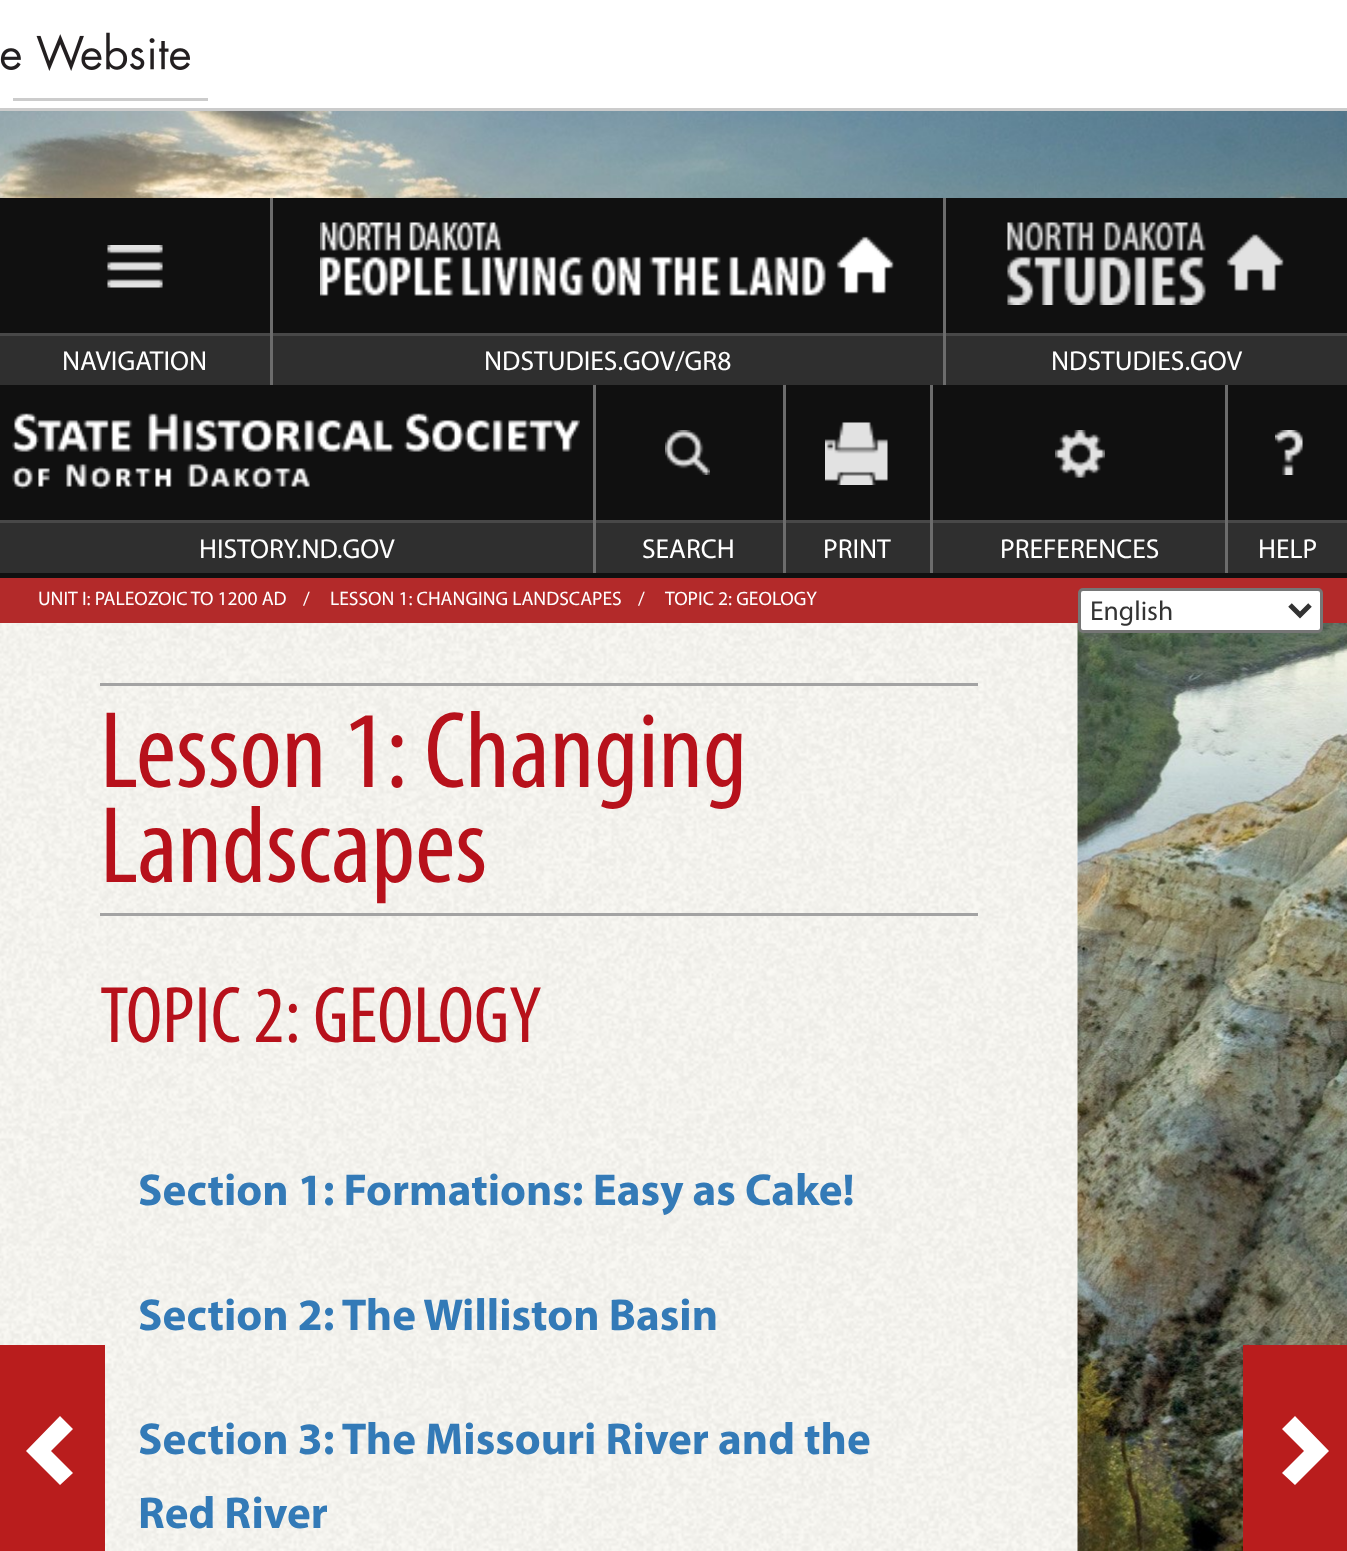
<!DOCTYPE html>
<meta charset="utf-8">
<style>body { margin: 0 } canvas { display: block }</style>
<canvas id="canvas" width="1347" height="1551"></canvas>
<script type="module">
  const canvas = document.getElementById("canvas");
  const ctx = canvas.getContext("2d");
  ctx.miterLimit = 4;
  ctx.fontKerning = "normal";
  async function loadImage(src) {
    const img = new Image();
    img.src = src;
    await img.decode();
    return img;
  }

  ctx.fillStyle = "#ffffff";
  ctx.fillRect(0, 0, 1347, 1551);
  ctx.drawImage(await loadImage("img1.png"), 0, 111, 1347, 1440);
  ctx.fillStyle = "#cccccc";
  ctx.fillRect(0, 108, 1347, 3);
  ctx.fillRect(13, 98, 195, 3);
  ctx.drawImage(await loadImage("img2.png"), 0, 32, 190, 39);
  ctx.fillStyle = "#101010";
  ctx.fillRect(0, 198, 1347, 322);
  ctx.drawImage(await loadImage("img3.png"), 107, 245, 56, 43);
  ctx.fillStyle = "#2f2f2f";
  ctx.fillRect(0, 336, 270, 49);
  ctx.fillStyle = "#484848";
  ctx.fillRect(0, 333, 1347, 3);
  ctx.font = "27.5px Myriad";
  ctx.fillStyle = "#ffffff";
  ctx.fillText("NAVIGATION", 62, 370);
  ctx.fillStyle = "#6c6c6c";
  ctx.fillRect(270, 198, 3, 187);
  ctx.drawImage(await loadImage("img4.png"), 320, 222, 574, 74);
  ctx.fillStyle = "#2f2f2f";
  ctx.fillRect(273, 336, 670, 49);
  ctx.fillStyle = "#ffffff";
  ctx.fillText("NDSTUDIES.GOV/GR8", 484, 370);
  ctx.fillStyle = "#6c6c6c";
  ctx.fillRect(943, 198, 3, 187);
  ctx.drawImage(await loadImage("img5.png"), 1007, 222, 277, 83);
  ctx.fillStyle = "#2f2f2f";
  ctx.fillRect(946, 336, 401, 49);
  ctx.fillStyle = "#ffffff";
  ctx.fillText("NDSTUDIES.GOV", 1051, 370);
  ctx.drawImage(await loadImage("img6.png"), 12, 413, 568, 76);
  ctx.fillStyle = "#2f2f2f";
  ctx.fillRect(0, 523, 593, 50);
  ctx.fillStyle = "#484848";
  ctx.fillRect(0, 520, 1347, 3);
  ctx.fillStyle = "#ffffff";
  ctx.fillText("HISTORY.ND.GOV", 199, 558);
  ctx.fillStyle = "#6c6c6c";
  ctx.fillRect(593, 385, 3, 188);
  ctx.drawImage(await loadImage("img7.png"), 665, 430, 45, 45);
  ctx.fillStyle = "#2f2f2f";
  ctx.fillRect(596, 523, 187, 50);
  ctx.fillStyle = "#ffffff";
  ctx.fillText("SEARCH", 642, 558);
  ctx.fillStyle = "#6c6c6c";
  ctx.fillRect(783, 385, 3, 188);
  ctx.drawImage(await loadImage("img8.png"), 825, 422, 63, 63);
  ctx.fillStyle = "#2f2f2f";
  ctx.fillRect(786, 523, 144, 50);
  ctx.fillStyle = "#ffffff";
  ctx.fillText("PRINT", 823, 558);
  ctx.fillStyle = "#6c6c6c";
  ctx.fillRect(930, 385, 3, 188);
  ctx.drawImage(await loadImage("img9.png"), 1055, 430, 50, 48);
  ctx.fillStyle = "#2f2f2f";
  ctx.fillRect(933, 523, 292, 50);
  ctx.fillStyle = "#ffffff";
  ctx.fillText("PREFERENCES", 1000, 558);
  ctx.fillStyle = "#6c6c6c";
  ctx.fillRect(1225, 385, 3, 188);
  ctx.drawImage(await loadImage("img10.png"), 1275, 430, 28, 45);
  ctx.fillStyle = "#2f2f2f";
  ctx.fillRect(1228, 523, 119, 50);
  ctx.fillStyle = "#ffffff";
  ctx.fillText("HELP", 1258, 558);
  ctx.fillStyle = "#101010";
  ctx.fillRect(0, 573, 1347, 5);
  ctx.fillStyle = "#b32a2a";
  ctx.fillRect(0, 578, 1347, 45);
  ctx.font = "19.5px Myriad";
  ctx.fillStyle = "#ffffff";
  ctx.fillText("UNIT I: PALEOZOIC TO 1200 AD", 38, 605);
  ctx.fillText("/", 303, 605);
  ctx.fillText("LESSON 1: CHANGING LANDSCAPES", 330, 605);
  ctx.fillText("/", 638, 605);
  ctx.fillText("TOPIC 2: GEOLOGY", 665, 605);
  ctx.beginPath();
  ctx.roundRect(1079.5, 589.5, 242, 42, 3.5);
  ctx.fill();
  ctx.strokeStyle = "#767676";
  ctx.lineWidth = 3;
  ctx.stroke();
  ctx.beginPath();
  ctx.moveTo(1290, 605);
  ctx.lineTo(1300, 615);
  ctx.lineTo(1310, 605);
  ctx.strokeStyle = "#333333";
  ctx.lineWidth = 5;
  ctx.stroke();
  ctx.font = "27.5px Myriad";
  ctx.fillStyle = "#333333";
  ctx.fillText("English", 1090, 620);
  ctx.drawImage(await loadImage("img11.png"), 0, 623, 1078, 928);
  ctx.fillStyle = "#a3a3a3";
  ctx.fillRect(100, 683, 878, 3);
  ctx.font = "110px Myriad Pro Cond";
  ctx.fillStyle = "#b7111b";
  ctx.fillText("Lesson 1: Changing", 100, 787);
  ctx.fillText("Landscapes", 100, 882);
  ctx.fillStyle = "#a3a3a3";
  ctx.fillRect(100, 913, 878, 3);
  ctx.font = "81px Myriad Pro Cond";
  ctx.fillStyle = "#b7111b";
  ctx.fillText("TOPIC 2: GEOLOGY", 100, 1042);
  ctx.font = "bold 45px Myriad";
  ctx.fillStyle = "#337ab7";
  ctx.fillText("Section 1: Formations: Easy as Cake!", 138, 1205);
  ctx.fillText("Section 2: The Williston Basin", 138, 1330);
  ctx.fillText("Section 3: The Missouri River and the", 138, 1454);
  ctx.fillText("Red River", 138, 1528);
  ctx.fillStyle = "#b91d1d";
  ctx.fillRect(0, 1345, 105, 206);
  ctx.fillStyle = "#ffffff";
  ctx.beginPath();
  ctx.moveTo(73, 1429);
  ctx.lineTo(51, 1451);
  ctx.lineTo(73, 1473);
  ctx.lineTo(60, 1485);
  ctx.lineTo(26, 1451);
  ctx.lineTo(60, 1416);
  ctx.closePath();
  ctx.fill();
  ctx.fillStyle = "#b91d1d";
  ctx.fillRect(1243, 1345, 104, 206);
  ctx.fillStyle = "#ffffff";
  ctx.beginPath();
  ctx.moveTo(1329, 1451);
  ctx.lineTo(1295, 1485);
  ctx.lineTo(1282, 1473);
  ctx.lineTo(1304, 1451);
  ctx.lineTo(1282, 1429);
  ctx.lineTo(1295, 1416);
  ctx.closePath();
  ctx.fill();
</script>
